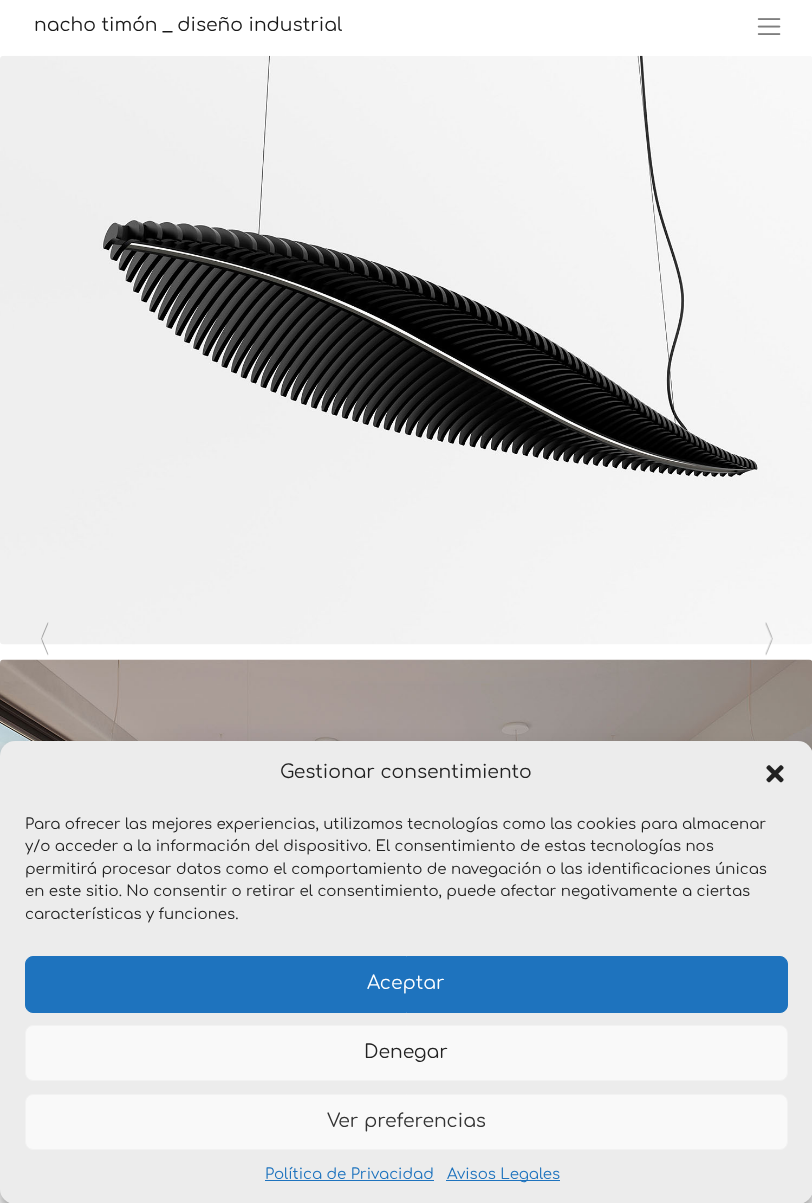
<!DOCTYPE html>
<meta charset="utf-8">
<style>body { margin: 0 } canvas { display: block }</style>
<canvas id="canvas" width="812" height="1203"></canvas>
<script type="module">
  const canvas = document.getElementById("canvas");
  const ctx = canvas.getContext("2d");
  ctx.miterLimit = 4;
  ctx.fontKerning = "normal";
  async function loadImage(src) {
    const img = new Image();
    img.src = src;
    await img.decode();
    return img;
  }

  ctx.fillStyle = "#ffffff";
  ctx.fillRect(0, 0, 812, 1203);
  ctx.font = "18.75px Comfortaa";
  ctx.fillStyle = "#191919";
  ctx.fillText("nacho timón _ diseño industrial", 34, 31);
  ctx.drawImage(await loadImage("img1.png"), 757, 18, 24, 17);
  ctx.drawImage(await loadImage("img2.png"), 0, 55, 812, 590);
  ctx.drawImage(await loadImage("img3.png"), 0, 659, 812, 97);
  ctx.drawImage(await loadImage("img4.png"), 41, 622, 8, 34);
  ctx.drawImage(await loadImage("img5.png"), 765, 622, 8, 34);
  ctx.fillStyle = "rgba(0, 0, 0, 0.23)";
  ctx.filter = "blur(4px)";
  ctx.beginPath();
  ctx.roundRect(0, 749, 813, 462, 15);
  ctx.fill();
  ctx.filter = "none";
  ctx.fillStyle = "rgba(0, 0, 0, 0.19)";
  ctx.filter = "blur(12.5px)";
  ctx.beginPath();
  ctx.roundRect(0, 754, 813, 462, 15);
  ctx.fill();
  ctx.filter = "none";
  ctx.fillStyle = "#ececec";
  ctx.beginPath();
  ctx.roundRect(0, 741, 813, 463, 15);
  ctx.fill();
  ctx.fillStyle = "#222222";
  ctx.fillText("Gestionar consentimiento", 280, 778);
  ctx.drawImage(await loadImage("img6.png"), 766, 765, 18, 18);
  ctx.font = "15px Comfortaa";
  ctx.fillText("Para ofrecer las mejores experiencias, utilizamos tecnologías como las cookies para almacenar", 25, 829);
  ctx.fillText("y/o acceder a la información del dispositivo. El consentimiento de estas tecnologías nos", 25, 851);
  ctx.fillText("permitirá procesar datos como el comportamiento de navegación o las identificaciones únicas", 25, 874);
  ctx.fillText("en este sitio. No consentir o retirar el consentimiento, puede afectar negativamente a ciertas", 25, 896);
  ctx.fillText("características y funciones.", 25, 919);
  ctx.fillStyle = "#1e73be";
  ctx.beginPath();
  ctx.roundRect(25.5, 956.5, 762, 56, 7.5);
  ctx.fill();
  ctx.strokeStyle = "#1e73be";
  ctx.stroke();
  ctx.font = "18.75px Comfortaa";
  ctx.fillStyle = "#ffffff";
  ctx.fillText("Aceptar", 367, 989);
  ctx.fillStyle = "#f9f9f9";
  ctx.beginPath();
  ctx.roundRect(25.5, 1025.5, 762, 55, 7.5);
  ctx.fill();
  ctx.strokeStyle = "#f2f2f2";
  ctx.stroke();
  ctx.fillStyle = "#222222";
  ctx.fillText("Denegar", 364, 1058);
  ctx.fillStyle = "#f9f9f9";
  ctx.beginPath();
  ctx.roundRect(25.5, 1094.5, 762, 55, 7.5);
  ctx.fill();
  ctx.stroke();
  ctx.fillStyle = "#333333";
  ctx.fillText("Ver preferencias", 327, 1127);
  ctx.font = "15px Comfortaa";
  ctx.fillStyle = "#1e73be";
  ctx.fillText("Política de Privacidad", 265, 1179);
  ctx.fillRect(265, 1180, 169, 1);
  ctx.fillRect(446, 1180, 114, 1);
  ctx.fillText("Avisos Legales", 447, 1179);
</script>
